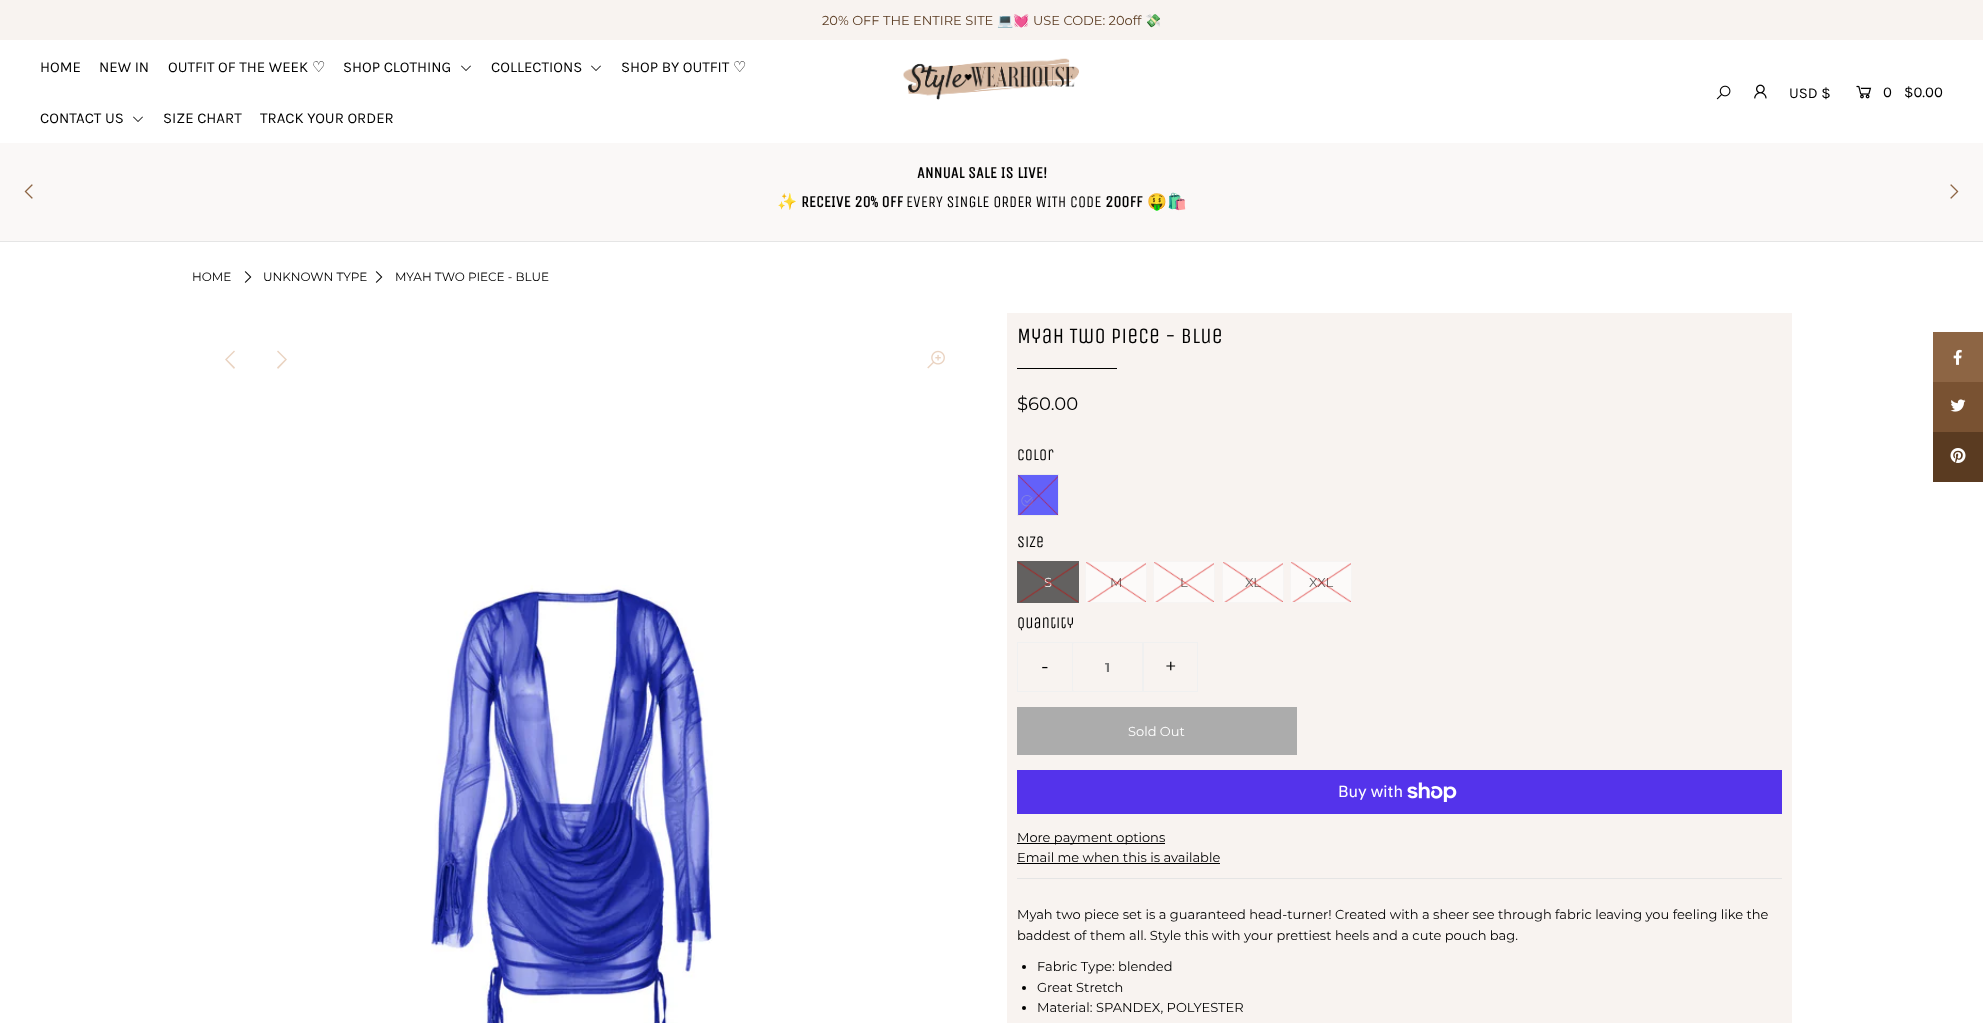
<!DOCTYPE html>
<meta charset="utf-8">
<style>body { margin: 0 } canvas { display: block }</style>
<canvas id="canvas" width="1983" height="1023"></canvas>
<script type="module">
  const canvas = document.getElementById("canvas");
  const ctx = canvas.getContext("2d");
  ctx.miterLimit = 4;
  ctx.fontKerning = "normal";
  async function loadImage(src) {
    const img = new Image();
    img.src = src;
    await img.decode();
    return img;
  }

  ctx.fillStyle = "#ffffff";
  ctx.fillRect(0, 0, 1983, 1023);
  ctx.fillStyle = "#f8f3f0";
  ctx.fillRect(0, 0, 1983, 40);
  ctx.font = "13px Montserrat";
  ctx.fillStyle = "#5a3b21";
  ctx.fillText("20% OFF THE ENTIRE SITE", 822, 25);
  ctx.font = "13px Noto Color Emoji";
  ctx.fillText("💻💓", 997, 25);
  ctx.font = "13px Montserrat";
  ctx.fillText("USE CODE: 20off", 1033, 25);
  ctx.font = "13px Noto Color Emoji";
  ctx.fillText("💸", 1145, 25);
  ctx.font = "15px Karla";
  ctx.fillStyle = "#000000";
  ctx.fillText("HOME", 40, 72);
  ctx.fillText("NEW IN", 99, 72);
  ctx.fillText("OUTFIT OF THE WEEK", 168, 72);
  ctx.font = "15px DejaVu Sans";
  ctx.fillText("♡", 312, 72);
  ctx.font = "15px Karla";
  ctx.fillText("SHOP CLOTHING", 343, 72);
  ctx.drawImage(await loadImage("img1.png"), 461, 65, 10, 6);
  ctx.fillText("COLLECTIONS", 491, 72);
  ctx.drawImage(await loadImage("img1.png"), 591, 65, 10, 6);
  ctx.fillText("SHOP BY OUTFIT", 621, 72);
  ctx.font = "15px DejaVu Sans";
  ctx.fillText("♡", 733, 72);
  ctx.font = "15px Karla";
  ctx.fillText("CONTACT US", 40, 123);
  ctx.drawImage(await loadImage("img1.png"), 133, 116, 10, 6);
  ctx.fillText("SIZE CHART", 163, 123);
  ctx.fillText("TRACK YOUR ORDER", 260, 123);
  ctx.drawImage(await loadImage("img2.png"), 903, 58, 176, 42);
  ctx.drawImage(await loadImage("img3.png"), 1716, 85, 15, 15);
  ctx.drawImage(await loadImage("img4.png"), 1754, 84, 13, 15);
  ctx.fillText("USD $", 1789, 98);
  ctx.drawImage(await loadImage("img5.png"), 1856, 85, 16, 14);
  ctx.fillText("0", 1883, 97);
  ctx.fillText("$0.00", 1904, 97);
  ctx.fillStyle = "#faf8f7";
  ctx.fillRect(0, 143, 1983, 98);
  ctx.fillStyle = "#e5e5e5";
  ctx.fillRect(0, 241, 1983, 1);
  ctx.drawImage(await loadImage("img6.png"), 24, 184, 9, 15);
  ctx.font = "bold 16px Unica One";
  ctx.fillStyle = "#000000";
  ctx.fillText("ANNUAL SALE IS LIVE!", 917, 178);
  ctx.font = "16px Noto Color Emoji";
  ctx.fillText("✨", 777, 207);
  ctx.font = "bold 16px Unica One";
  ctx.fillText("RECEIVE 20% OFF", 801, 207);
  ctx.font = "16px Unica One";
  ctx.fillText("EVERY SINGLE ORDER WITH CODE", 906, 207);
  ctx.font = "bold 16px Unica One";
  ctx.fillText("20OFF", 1105, 207);
  ctx.font = "bold 16px Noto Color Emoji";
  ctx.fillText("🤑🛍", 1147, 207);
  ctx.drawImage(await loadImage("img7.png"), 1950, 184, 9, 15);
  ctx.font = "12px Montserrat";
  ctx.fillText("HOME", 192, 281);
  ctx.drawImage(await loadImage("img8.png"), 244, 271, 8, 12);
  ctx.fillText("UNKNOWN TYPE", 263, 281);
  ctx.drawImage(await loadImage("img8.png"), 375, 271, 8, 12);
  ctx.fillText("MYAH TWO PIECE - BLUE", 395, 281);
  ctx.fillStyle = "#ead3c1";
  ctx.beginPath();
  ctx.moveTo(234, 350.5);
  ctx.lineTo(235, 351.5);
  ctx.lineTo(227, 359.5);
  ctx.lineTo(235, 367.5);
  ctx.lineTo(234, 369);
  ctx.lineTo(225, 359.5);
  ctx.closePath();
  ctx.moveTo(278, 350.5);
  ctx.lineTo(287, 359.5);
  ctx.lineTo(278, 369);
  ctx.lineTo(277, 367.5);
  ctx.lineTo(285, 359.5);
  ctx.lineTo(277, 351.5);
  ctx.closePath();
  ctx.fill();
  ctx.drawImage(await loadImage("img9.png"), 927, 350, 18, 19);
  ctx.drawImage(await loadImage("img10.png"), 431, 585, 282, 438);
  ctx.fillStyle = "#f8f3f0";
  ctx.fillRect(1007, 313, 785, 710);
  ctx.font = "22px Unica One";
  ctx.fillStyle = "#000000";
  ctx.fillText("Myah Two Piece - Blue", 1017, 343);
  ctx.fillRect(1017, 368, 100, 1);
  ctx.fillStyle = "#e5e5e5";
  ctx.fillRect(1017, 878, 765, 1);
  ctx.font = "18px Montserrat";
  ctx.fillStyle = "#000000";
  ctx.fillText("$60.00", 1017, 410);
  ctx.font = "16px Unica One";
  ctx.fillText("Color", 1017, 460);
  ctx.strokeStyle = "#edebe9";
  ctx.strokeRect(1017.5, 474.5, 41, 41);
  ctx.fillStyle = "#6361f9";
  ctx.fillRect(1018, 475, 40, 40);
  ctx.drawImage(await loadImage("img12.png"), 1021, 495, 12, 12);
  ctx.drawImage(await loadImage("img11.png"), 1018, 475, 40, 40);
  ctx.fillStyle = "#000000";
  ctx.fillText("Size", 1017, 547);
  ctx.fillStyle = "#636160";
  ctx.fillRect(1017, 561, 62, 42);
  ctx.font = "13px Montserrat";
  ctx.fillStyle = "#fcfaf9";
  ctx.fillText("S", 1044, 587);
  ctx.drawImage(await loadImage("img13.png"), 1018, 562, 60, 40);
  ctx.beginPath();
  ctx.rect(1085.5, 561.5, 61, 41);
  ctx.fill();
  ctx.strokeStyle = "#f6f4f3";
  ctx.stroke();
  ctx.fillStyle = "#636160";
  ctx.fillText("M", 1110, 587);
  ctx.drawImage(await loadImage("img14.png"), 1086, 562, 60, 40);
  ctx.fillStyle = "#fcfaf9";
  ctx.beginPath();
  ctx.rect(1153.5, 561.5, 61, 41);
  ctx.fill();
  ctx.stroke();
  ctx.fillStyle = "#636160";
  ctx.fillText("L", 1180, 587);
  ctx.drawImage(await loadImage("img15.png"), 1154, 562, 60, 40);
  ctx.fillStyle = "#fcfaf9";
  ctx.beginPath();
  ctx.rect(1222.5, 561.5, 61, 41);
  ctx.fill();
  ctx.stroke();
  ctx.fillStyle = "#636160";
  ctx.fillText("XL", 1245, 587);
  ctx.drawImage(await loadImage("img16.png"), 1223, 562, 60, 40);
  ctx.fillStyle = "#fcfaf9";
  ctx.beginPath();
  ctx.rect(1290.5, 561.5, 61, 41);
  ctx.fill();
  ctx.stroke();
  ctx.fillStyle = "#636160";
  ctx.fillText("XXL", 1309, 587);
  ctx.drawImage(await loadImage("img17.png"), 1291, 562, 60, 40);
  ctx.font = "16px Unica One";
  ctx.fillStyle = "#000000";
  ctx.fillText("Quantity", 1017, 628);
  ctx.strokeStyle = "#f0f0f0";
  ctx.strokeRect(1017.5, 642.5, 55, 49);
  ctx.font = "20px Montserrat";
  ctx.fillText("-", 1041, 673);
  ctx.beginPath();
  ctx.roundRect(1072.5, 642.5, 71, 49, 1.5);
  ctx.stroke();
  ctx.font = "bold 13px Montserrat";
  ctx.fillStyle = "#777777";
  ctx.fillText("1", 1105, 672);
  ctx.strokeRect(1142.5, 642.5, 55, 49);
  ctx.font = "20px Montserrat";
  ctx.fillStyle = "#000000";
  ctx.fillText("+", 1165, 673);
  ctx.fillStyle = "#acacac";
  ctx.fillRect(1017, 707, 280, 48);
  ctx.font = "13px Montserrat";
  ctx.fillStyle = "#ffffff";
  ctx.fillText("Sold Out", 1128, 736);
  ctx.fillStyle = "#5433eb";
  ctx.fillRect(1017, 770, 765, 44);
  ctx.font = "16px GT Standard";
  ctx.fillStyle = "#ffffff";
  ctx.fillText("Buy with", 1338, 797);
  ctx.drawImage(await loadImage("img18.png"), 1407, 782, 50, 20);
  ctx.fillStyle = "#000000";
  ctx.fillRect(1017, 843, 148, 1);
  ctx.font = "13px Montserrat";
  ctx.fillText("More payment options", 1017, 842);
  ctx.fillText("Email me when this is available", 1017, 862);
  ctx.fillRect(1017, 863, 203, 1);
  ctx.fillText("Myah two piece set is a guaranteed head-turner! Created with a sheer see through fabric leaving you feeling like the", 1017, 919);
  ctx.fillText("baddest of them all. Style this with your prettiest heels and a cute pouch bag.", 1017, 940);
  ctx.beginPath();
  ctx.arc(1024, 967, 2, 0, Math.PI * 2);
  ctx.fill();
  ctx.fillText("Fabric Type: blended", 1037, 971);
  ctx.beginPath();
  ctx.arc(1024, 988, 2, 0, Math.PI * 2);
  ctx.fill();
  ctx.fillText("Great Stretch", 1037, 992);
  ctx.beginPath();
  ctx.arc(1024, 1008, 2, 0, Math.PI * 2);
  ctx.fill();
  ctx.fillText("Material: SPANDEX, POLYESTER", 1037, 1012);
  ctx.fillStyle = "#8d6544";
  ctx.fillRect(1933, 332, 50, 50);
  ctx.drawImage(await loadImage("img19.png"), 1953, 349, 9, 16);
  ctx.fillStyle = "#795232";
  ctx.fillRect(1933, 382, 50, 50);
  ctx.drawImage(await loadImage("img20.png"), 1950, 399, 16, 13);
  ctx.fillStyle = "#5a3b21";
  ctx.fillRect(1933, 432, 50, 50);
  ctx.drawImage(await loadImage("img21.png"), 1950, 448, 16, 15);
</script>
